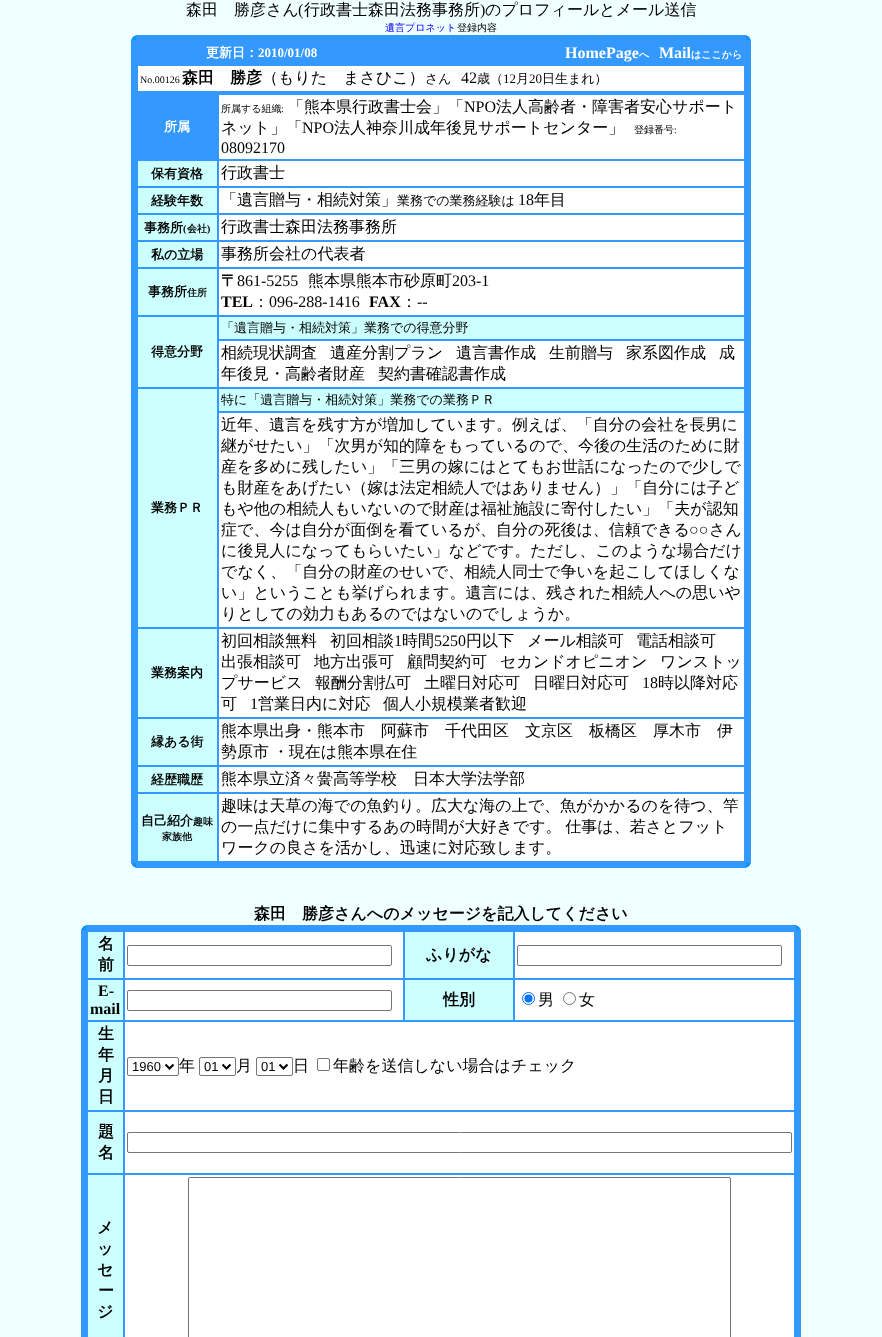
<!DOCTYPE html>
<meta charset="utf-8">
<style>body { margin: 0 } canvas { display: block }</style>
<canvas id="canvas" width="882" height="1337"></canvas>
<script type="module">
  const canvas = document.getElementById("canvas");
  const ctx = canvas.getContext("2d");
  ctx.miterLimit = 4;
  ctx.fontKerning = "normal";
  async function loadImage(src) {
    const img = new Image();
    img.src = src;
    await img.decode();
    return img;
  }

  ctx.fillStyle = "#f0ffff";
  ctx.fillRect(0, 0, 882, 1337);
  ctx.font = "500 16px WenQuanYi Zen Hei";
  ctx.fillStyle = "#000000";
  ctx.fillText("森田　勝彦さん", 186, 15);
  ctx.font = "16px Liberation Serif";
  ctx.fillText("(", 298, 15);
  ctx.font = "500 16px WenQuanYi Zen Hei";
  ctx.fillText("行政書士森田法務事務所", 304, 15);
  ctx.font = "16px Liberation Serif";
  ctx.fillText(")", 480, 15);
  ctx.font = "500 16px WenQuanYi Zen Hei";
  ctx.fillText("のプロフィールとメール送信", 485, 15);
  ctx.font = "500 10px WenQuanYi Zen Hei";
  ctx.fillStyle = "#0000ff";
  ctx.fillText("遺言プロネット", 385, 31);
  ctx.fillStyle = "#000000";
  ctx.fillText("登録内容", 457, 31);
  ctx.drawImage(await loadImage("img1.png"), 131, 35, 5, 5);
  ctx.fillStyle = "#3399ff";
  ctx.fillRect(136, 35, 610, 5);
  ctx.drawImage(await loadImage("img2.png"), 746, 35, 5, 5);
  ctx.fillRect(131, 40, 620, 53);
  ctx.font = "bold 13px WenQuanYi Zen Hei";
  ctx.fillStyle = "#ffffff";
  ctx.fillText("更新日：", 206, 57);
  ctx.font = "bold 13px Liberation Serif";
  ctx.fillText("2010/01/08", 258, 57);
  ctx.font = "bold 16px Liberation Serif";
  ctx.fillText("HomePage", 565, 58);
  ctx.font = "bold 10px WenQuanYi Zen Hei";
  ctx.fillText("へ", 639, 58);
  ctx.font = "bold 16px Liberation Serif";
  ctx.fillText("Mail", 659, 58);
  ctx.font = "bold 10px WenQuanYi Zen Hei";
  ctx.fillText("はここから", 691, 58);
  ctx.fillRect(138, 66, 606, 25);
  ctx.font = "10px Liberation Serif";
  ctx.fillStyle = "#000000";
  ctx.fillText("No.00126", 140, 83);
  ctx.font = "bold 16px WenQuanYi Zen Hei";
  ctx.fillText("森田　勝彦", 182, 83);
  ctx.font = "500 16px WenQuanYi Zen Hei";
  ctx.fillText("（もりた　まさひこ）", 262, 83);
  ctx.font = "500 13px WenQuanYi Zen Hei";
  ctx.fillText("さん", 425, 83);
  ctx.font = "16px Liberation Serif";
  ctx.fillText("42", 461, 83);
  ctx.font = "500 13px WenQuanYi Zen Hei";
  ctx.fillText("歳（", 477, 83);
  ctx.font = "13px Liberation Serif";
  ctx.fillText("12", 503, 83);
  ctx.font = "500 13px WenQuanYi Zen Hei";
  ctx.fillText("月", 516, 83);
  ctx.font = "13px Liberation Serif";
  ctx.fillText("20", 529, 83);
  ctx.font = "500 13px WenQuanYi Zen Hei";
  ctx.fillText("日生まれ）", 542, 83);
  ctx.fillStyle = "#3399ff";
  ctx.fillRect(131, 93, 620, 770);
  ctx.font = "bold 13px WenQuanYi Zen Hei";
  ctx.fillStyle = "#ffffff";
  ctx.fillText("所属", 164, 131);
  ctx.fillRect(219, 95, 525, 64);
  ctx.font = "500 10px WenQuanYi Zen Hei";
  ctx.fillStyle = "#000000";
  ctx.fillText("所属する組織", 221, 112);
  ctx.font = "10px Liberation Serif";
  ctx.fillText(":", 281, 112);
  ctx.font = "500 16px WenQuanYi Zen Hei";
  ctx.fillText("「熊本県行政書士会」「", 288, 112);
  ctx.font = "16px Liberation Serif";
  ctx.fillText("NPO", 464, 112);
  ctx.font = "500 16px WenQuanYi Zen Hei";
  ctx.fillText("法人高齢者・障害者安心サポート", 496, 112);
  ctx.fillText("ネット」「", 221, 133);
  ctx.font = "16px Liberation Serif";
  ctx.fillText("NPO", 302, 133);
  ctx.font = "500 16px WenQuanYi Zen Hei";
  ctx.fillText("法人神奈川成年後見サポートセンター」", 334, 133);
  ctx.font = "500 10px WenQuanYi Zen Hei";
  ctx.fillText("登録番号", 634, 133);
  ctx.font = "10px Liberation Serif";
  ctx.fillText(":", 674, 133);
  ctx.font = "16px Liberation Serif";
  ctx.fillText("08092170", 221, 153);
  ctx.fillStyle = "#ccffff";
  ctx.fillRect(138, 161, 79, 25);
  ctx.font = "bold 13px WenQuanYi Zen Hei";
  ctx.fillStyle = "#000000";
  ctx.fillText("保有資格", 151, 178);
  ctx.fillStyle = "#ffffff";
  ctx.fillRect(219, 161, 525, 25);
  ctx.font = "500 16px WenQuanYi Zen Hei";
  ctx.fillStyle = "#000000";
  ctx.fillText("行政書士", 221, 178);
  ctx.fillStyle = "#ccffff";
  ctx.fillRect(138, 188, 79, 25);
  ctx.font = "bold 13px WenQuanYi Zen Hei";
  ctx.fillStyle = "#000000";
  ctx.fillText("経験年数", 151, 205);
  ctx.fillStyle = "#ffffff";
  ctx.fillRect(219, 188, 525, 25);
  ctx.font = "500 16px WenQuanYi Zen Hei";
  ctx.fillStyle = "#000000";
  ctx.fillText("「遺言贈与・相続対策」", 221, 205);
  ctx.font = "500 13px WenQuanYi Zen Hei";
  ctx.fillText("業務での業務経験は", 397, 205);
  ctx.font = "16px Liberation Serif";
  ctx.fillText("18", 518, 205);
  ctx.font = "500 16px WenQuanYi Zen Hei";
  ctx.fillText("年目", 534, 205);
  ctx.fillStyle = "#ccffff";
  ctx.fillRect(138, 215, 79, 25);
  ctx.font = "bold 13px WenQuanYi Zen Hei";
  ctx.fillStyle = "#000000";
  ctx.fillText("事務所", 144, 232);
  ctx.font = "bold 10px Liberation Serif";
  ctx.fillText("(", 183, 232);
  ctx.font = "bold 10px WenQuanYi Zen Hei";
  ctx.fillText("会社", 187, 232);
  ctx.font = "bold 10px Liberation Serif";
  ctx.fillText(")", 207, 232);
  ctx.fillStyle = "#ffffff";
  ctx.fillRect(219, 215, 525, 25);
  ctx.font = "500 16px WenQuanYi Zen Hei";
  ctx.fillStyle = "#000000";
  ctx.fillText("行政書士森田法務事務所", 221, 232);
  ctx.fillStyle = "#ccffff";
  ctx.fillRect(138, 242, 79, 25);
  ctx.font = "bold 13px WenQuanYi Zen Hei";
  ctx.fillStyle = "#000000";
  ctx.fillText("私の立場", 151, 259);
  ctx.fillStyle = "#ffffff";
  ctx.fillRect(219, 242, 525, 25);
  ctx.font = "500 16px WenQuanYi Zen Hei";
  ctx.fillStyle = "#000000";
  ctx.fillText("事務所会社の代表者", 221, 259);
  ctx.fillStyle = "#ccffff";
  ctx.fillRect(138, 269, 79, 46);
  ctx.font = "bold 13px WenQuanYi Zen Hei";
  ctx.fillStyle = "#000000";
  ctx.fillText("事務所", 148, 296);
  ctx.font = "bold 10px WenQuanYi Zen Hei";
  ctx.fillText("住所", 187, 296);
  ctx.fillStyle = "#ffffff";
  ctx.fillRect(219, 269, 525, 46);
  ctx.font = "bold 16px WenQuanYi Zen Hei";
  ctx.fillStyle = "#000000";
  ctx.fillText("〒", 221, 286);
  ctx.font = "16px Liberation Serif";
  ctx.fillText("861-5255", 237, 286);
  ctx.font = "500 16px WenQuanYi Zen Hei";
  ctx.fillText("熊本県熊本市砂原町", 308, 286);
  ctx.font = "16px Liberation Serif";
  ctx.fillText("203-1", 452, 286);
  ctx.font = "bold 16px Liberation Serif";
  ctx.fillText("TEL", 221, 307);
  ctx.font = "500 16px WenQuanYi Zen Hei";
  ctx.fillText("：", 253, 307);
  ctx.font = "16px Liberation Serif";
  ctx.fillText("096-288-1416", 269, 307);
  ctx.font = "bold 16px Liberation Serif";
  ctx.fillText("FAX", 369, 307);
  ctx.font = "500 16px WenQuanYi Zen Hei";
  ctx.fillText("：", 401, 307);
  ctx.font = "16px Liberation Serif";
  ctx.fillText("--", 417, 307);
  ctx.fillStyle = "#ccffff";
  ctx.fillRect(219, 317, 525, 22);
  ctx.font = "500 13px WenQuanYi Zen Hei";
  ctx.fillStyle = "#000000";
  ctx.fillText("「遺言贈与・相続対策」業務での得意分野", 221, 332);
  ctx.fillStyle = "#ccffff";
  ctx.fillRect(138, 317, 79, 70);
  ctx.font = "bold 13px WenQuanYi Zen Hei";
  ctx.fillStyle = "#000000";
  ctx.fillText("得意分野", 151, 356);
  ctx.fillStyle = "#ffffff";
  ctx.fillRect(219, 341, 525, 46);
  ctx.font = "500 16px WenQuanYi Zen Hei";
  ctx.fillStyle = "#000000";
  ctx.fillText("相続現状調査", 221, 358);
  ctx.fillText("遺産分割プラン", 330, 358);
  ctx.fillText("遺言書作成", 456, 358);
  ctx.fillText("生前贈与", 549, 358);
  ctx.fillText("家系図作成", 626, 358);
  ctx.fillText("成", 719, 358);
  ctx.fillText("年後見・高齢者財産", 221, 379);
  ctx.fillText("契約書確認書作成", 378, 379);
  ctx.fillStyle = "#ccffff";
  ctx.fillRect(219, 389, 525, 22);
  ctx.font = "500 13px WenQuanYi Zen Hei";
  ctx.fillStyle = "#000000";
  ctx.fillText("特に「遺言贈与・相続対策」業務での業務ＰＲ", 221, 404);
  ctx.fillStyle = "#ccffff";
  ctx.fillRect(138, 389, 79, 238);
  ctx.font = "bold 13px WenQuanYi Zen Hei";
  ctx.fillStyle = "#000000";
  ctx.fillText("業務ＰＲ", 151, 512);
  ctx.fillStyle = "#ffffff";
  ctx.fillRect(219, 413, 525, 214);
  ctx.font = "500 16px WenQuanYi Zen Hei";
  ctx.fillStyle = "#000000";
  ctx.fillText("近年、遺言を残す方が増加しています。例えば、「自分の会社を長男に", 221, 430);
  ctx.fillText("継がせたい」「次男が知的障をもっているので、今後の生活のために財", 221, 451);
  ctx.fillText("産を多めに残したい」「三男の嫁にはとてもお世話になったので少しで", 221, 472);
  ctx.fillText("も財産をあげたい（嫁は法定相続人ではありません）」「自分には子ど", 221, 493);
  ctx.fillText("もや他の相続人もいないので財産は福祉施設に寄付したい」「夫が認知", 221, 514);
  ctx.fillText("症で、今は自分が面倒を看ているが、自分の死後は、信頼できる", 221, 535);
  ctx.font = "16px Liberation Serif";
  ctx.fillText("○○", 689, 535);
  ctx.font = "500 16px WenQuanYi Zen Hei";
  ctx.fillText("さん", 709, 535);
  ctx.fillText("に後見人になってもらいたい」などです。ただし、このような場合だけ", 221, 556);
  ctx.fillText("でなく、「自分の財産のせいで、相続人同士で争いを起こしてほしくな", 221, 577);
  ctx.fillText("い」ということも挙げられます。遺言には、残された相続人への思いや", 221, 598);
  ctx.fillText("りとしての効力もあるのではないのでしょうか。", 221, 619);
  ctx.fillStyle = "#ccffff";
  ctx.fillRect(138, 629, 79, 88);
  ctx.font = "bold 13px WenQuanYi Zen Hei";
  ctx.fillStyle = "#000000";
  ctx.fillText("業務案内", 151, 677);
  ctx.fillStyle = "#ffffff";
  ctx.fillRect(219, 629, 525, 88);
  ctx.font = "500 16px WenQuanYi Zen Hei";
  ctx.fillStyle = "#000000";
  ctx.fillText("初回相談無料", 221, 646);
  ctx.fillText("初回相談", 330, 646);
  ctx.font = "16px Liberation Serif";
  ctx.fillText("1", 394, 646);
  ctx.font = "500 16px WenQuanYi Zen Hei";
  ctx.fillText("時間", 402, 646);
  ctx.font = "16px Liberation Serif";
  ctx.fillText("5250", 434, 646);
  ctx.font = "500 16px WenQuanYi Zen Hei";
  ctx.fillText("円以下", 466, 646);
  ctx.fillText("メール相談可", 527, 646);
  ctx.fillText("電話相談可", 636, 646);
  ctx.fillText("出張相談可", 221, 667);
  ctx.fillText("地方出張可", 314, 667);
  ctx.fillText("顧問契約可", 407, 667);
  ctx.fillText("セカンドオピニオン", 500, 667);
  ctx.fillText("ワンストッ", 660, 667);
  ctx.fillText("プサービス", 221, 688);
  ctx.fillText("報酬分割払可", 315, 688);
  ctx.fillText("土曜日対応可", 424, 688);
  ctx.fillText("日曜日対応可", 533, 688);
  ctx.font = "16px Liberation Serif";
  ctx.fillText("18", 642, 688);
  ctx.font = "500 16px WenQuanYi Zen Hei";
  ctx.fillText("時以降対応", 658, 688);
  ctx.fillText("可", 221, 709);
  ctx.font = "16px Liberation Serif";
  ctx.fillText("1", 250, 709);
  ctx.font = "500 16px WenQuanYi Zen Hei";
  ctx.fillText("営業日内に対応", 258, 709);
  ctx.fillText("個人小規模業者歓迎", 383, 709);
  ctx.fillStyle = "#ccffff";
  ctx.fillRect(138, 719, 79, 46);
  ctx.font = "bold 13px WenQuanYi Zen Hei";
  ctx.fillStyle = "#000000";
  ctx.fillText("縁ある街", 151, 746);
  ctx.fillStyle = "#ffffff";
  ctx.fillRect(219, 719, 525, 46);
  ctx.font = "500 16px WenQuanYi Zen Hei";
  ctx.fillStyle = "#000000";
  ctx.fillText("熊本県出身・熊本市　阿蘇市　千代田区　文京区　板橋区　厚木市　伊", 221, 736);
  ctx.wordSpacing = "-1px";
  ctx.fillText("勢原市 ・現在は熊本県在住", 221, 757);
  ctx.fillStyle = "#ccffff";
  ctx.fillRect(138, 767, 79, 25);
  ctx.wordSpacing = "0px";
  ctx.font = "bold 13px WenQuanYi Zen Hei";
  ctx.fillStyle = "#000000";
  ctx.fillText("経歴職歴", 151, 784);
  ctx.fillStyle = "#ffffff";
  ctx.fillRect(219, 767, 525, 25);
  ctx.font = "500 16px WenQuanYi Zen Hei";
  ctx.fillStyle = "#000000";
  ctx.fillText("熊本県立済々黌高等学校　日本大学法学部", 221, 784);
  ctx.fillStyle = "#ccffff";
  ctx.fillRect(138, 794, 79, 67);
  ctx.font = "bold 13px WenQuanYi Zen Hei";
  ctx.fillStyle = "#000000";
  ctx.fillText("自己紹介", 141, 825);
  ctx.font = "bold 10px WenQuanYi Zen Hei";
  ctx.fillText("趣味", 193, 825);
  ctx.fillText("家族他", 162, 840);
  ctx.fillStyle = "#ffffff";
  ctx.fillRect(219, 794, 525, 67);
  ctx.font = "500 16px WenQuanYi Zen Hei";
  ctx.fillStyle = "#000000";
  ctx.fillText("趣味は天草の海での魚釣り。広大な海の上で、魚がかかるのを待つ、竿", 221, 811);
  ctx.wordSpacing = "-1px";
  ctx.fillText("の一点だけに集中するあの時間が大好きです。 仕事は、若さとフット", 221, 832);
  ctx.wordSpacing = "0px";
  ctx.fillText("ワークの良さを活かし、迅速に対応致します。", 221, 853);
  ctx.drawImage(await loadImage("img3.png"), 131, 863, 5, 5);
  ctx.fillStyle = "#3399ff";
  ctx.fillRect(136, 863, 610, 5);
  ctx.drawImage(await loadImage("img4.png"), 746, 863, 5, 5);
  ctx.font = "bold 16px WenQuanYi Zen Hei";
  ctx.fillStyle = "#000000";
  ctx.fillText("森田　勝彦さんへのメッセージを記入してください", 254, 919);
  ctx.drawImage(await loadImage("img1.png"), 81, 925, 5, 5);
  ctx.fillStyle = "#3399ff";
  ctx.fillRect(86, 925, 710, 5);
  ctx.drawImage(await loadImage("img2.png"), 796, 925, 5, 5);
  ctx.fillRect(81, 930, 720, 407);
  ctx.fillStyle = "#ccffff";
  ctx.fillRect(88, 932, 35, 46);
  ctx.fillStyle = "#000000";
  ctx.fillText("名", 98, 949);
  ctx.fillText("前", 98, 970);
  ctx.fillStyle = "#ffffff";
  ctx.fillRect(125, 932, 278, 46);
  ctx.beginPath();
  ctx.roundRect(127.5, 945.5, 264, 20, 1.5);
  ctx.strokeStyle = "#767676";
  ctx.stroke();
  ctx.fillStyle = "#ccffff";
  ctx.fillRect(405, 932, 108, 46);
  ctx.fillStyle = "#000000";
  ctx.fillText("ふりがな", 426, 960);
  ctx.fillStyle = "#ffffff";
  ctx.fillRect(515, 932, 279, 46);
  ctx.beginPath();
  ctx.roundRect(517.5, 945.5, 264, 20, 1.5);
  ctx.stroke();
  ctx.fillStyle = "#ccffff";
  ctx.fillRect(88, 980, 35, 40);
  ctx.font = "bold 16px Liberation Serif";
  ctx.fillStyle = "#000000";
  ctx.fillText("E-", 98, 996);
  ctx.fillText("mail", 90, 1014);
  ctx.fillStyle = "#ffffff";
  ctx.fillRect(125, 980, 278, 40);
  ctx.beginPath();
  ctx.roundRect(127.5, 990.5, 264, 20, 1.5);
  ctx.stroke();
  ctx.fillStyle = "#ccffff";
  ctx.fillRect(405, 980, 108, 40);
  ctx.font = "bold 16px WenQuanYi Zen Hei";
  ctx.fillStyle = "#000000";
  ctx.fillText("性別", 443, 1005);
  ctx.fillStyle = "#ffffff";
  ctx.fillRect(515, 980, 279, 40);
  ctx.beginPath();
  ctx.arc(528.5, 998.5, 6, 0, Math.PI * 2);
  ctx.strokeStyle = "#0075ff";
  ctx.stroke();
  ctx.fillStyle = "#0075ff";
  ctx.beginPath();
  ctx.arc(528.5, 998.5, 4, 0, Math.PI * 2);
  ctx.fill();
  ctx.font = "500 16px WenQuanYi Zen Hei";
  ctx.fillStyle = "#000000";
  ctx.fillText("男", 538, 1005);
  ctx.beginPath();
  ctx.arc(569.5, 998.5, 6, 0, Math.PI * 2);
  ctx.strokeStyle = "#767676";
  ctx.stroke();
  ctx.fillText("女", 579, 1005);
  ctx.fillStyle = "#ccffff";
  ctx.fillRect(88, 1022, 35, 88);
  ctx.font = "bold 16px WenQuanYi Zen Hei";
  ctx.fillStyle = "#000000";
  ctx.fillText("生", 98, 1039);
  ctx.fillText("年", 98, 1060);
  ctx.fillText("月", 98, 1081);
  ctx.fillText("日", 98, 1102);
  ctx.fillStyle = "#ffffff";
  ctx.fillRect(125, 1022, 669, 88);
  ctx.beginPath();
  ctx.roundRect(127.5, 1057.5, 51, 18, 1.5);
  ctx.stroke();
  ctx.beginPath();
  ctx.moveTo(165.5, 1064.5);
  ctx.lineTo(169.5, 1068.5);
  ctx.lineTo(173.5, 1064.5);
  ctx.strokeStyle = "#000000";
  ctx.lineWidth = 2;
  ctx.stroke();
  ctx.font = "13px Liberation Sans";
  ctx.fillStyle = "#000000";
  ctx.fillText("1960", 132, 1071);
  ctx.font = "500 16px WenQuanYi Zen Hei";
  ctx.fillText("年", 179, 1071);
  ctx.beginPath();
  ctx.roundRect(199.5, 1057.5, 36, 18, 1.5);
  ctx.strokeStyle = "#767676";
  ctx.lineWidth = 1;
  ctx.stroke();
  ctx.beginPath();
  ctx.moveTo(222.5, 1064.5);
  ctx.lineTo(226.5, 1068.5);
  ctx.lineTo(230.5, 1064.5);
  ctx.strokeStyle = "#000000";
  ctx.lineWidth = 2;
  ctx.stroke();
  ctx.font = "13px Liberation Sans";
  ctx.fillText("01", 204, 1071);
  ctx.font = "500 16px WenQuanYi Zen Hei";
  ctx.fillText("月", 236, 1071);
  ctx.beginPath();
  ctx.roundRect(256.5, 1057.5, 36, 18, 1.5);
  ctx.strokeStyle = "#767676";
  ctx.lineWidth = 1;
  ctx.stroke();
  ctx.beginPath();
  ctx.moveTo(279.5, 1064.5);
  ctx.lineTo(283.5, 1068.5);
  ctx.lineTo(287.5, 1064.5);
  ctx.strokeStyle = "#000000";
  ctx.lineWidth = 2;
  ctx.stroke();
  ctx.font = "13px Liberation Sans";
  ctx.fillText("01", 261, 1071);
  ctx.font = "500 16px WenQuanYi Zen Hei";
  ctx.fillText("日", 293, 1071);
  ctx.beginPath();
  ctx.roundRect(317.5, 1058.5, 12, 12, 1.5);
  ctx.strokeStyle = "#767676";
  ctx.lineWidth = 1;
  ctx.stroke();
  ctx.fillText("年齢を送信しない場合はチェック", 333, 1071);
  ctx.fillStyle = "#ccffff";
  ctx.fillRect(88, 1112, 35, 61);
  ctx.font = "bold 16px WenQuanYi Zen Hei";
  ctx.fillStyle = "#000000";
  ctx.fillText("題", 98, 1137);
  ctx.fillText("名", 98, 1158);
  ctx.fillStyle = "#ffffff";
  ctx.fillRect(125, 1112, 669, 61);
  ctx.beginPath();
  ctx.roundRect(127.5, 1132.5, 664, 20, 1.5);
  ctx.stroke();
  ctx.fillStyle = "#ccffff";
  ctx.fillRect(88, 1175, 35, 162);
  ctx.fillStyle = "#000000";
  ctx.fillText("メ", 97, 1233);
  ctx.fillText("ッ", 97, 1254);
  ctx.fillText("セ", 97, 1275);
  ctx.fillText("ー", 98, 1296);
  ctx.fillText("ジ", 97, 1317);
  ctx.fillStyle = "#ffffff";
  ctx.fillRect(125, 1175, 669, 162);
  ctx.beginPath();
  ctx.roundRect(188.5, 1177.5, 542, 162, 1.5);
  ctx.stroke();
</script>
